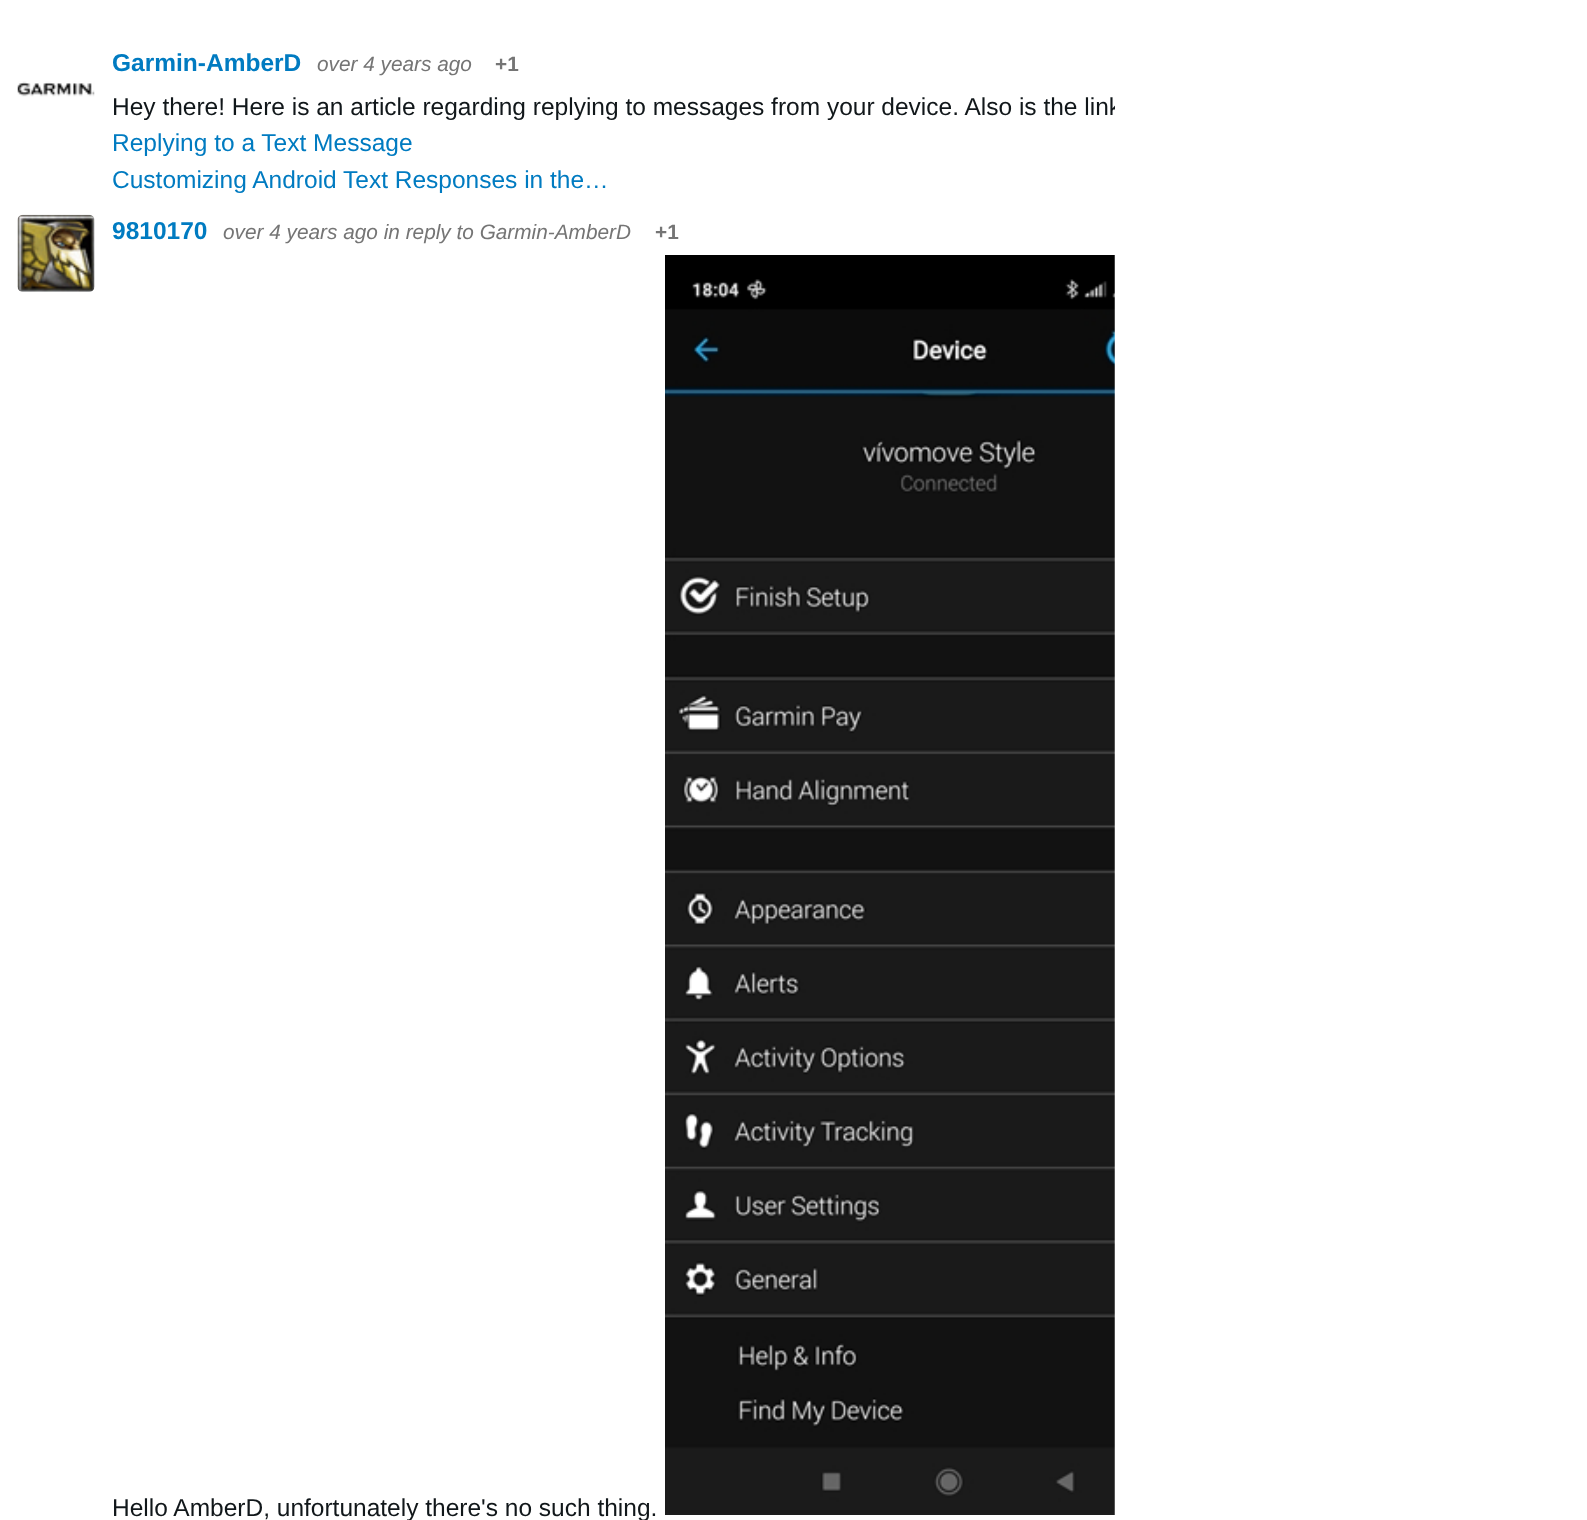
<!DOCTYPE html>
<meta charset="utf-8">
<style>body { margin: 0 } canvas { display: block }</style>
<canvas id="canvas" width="1587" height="1520"></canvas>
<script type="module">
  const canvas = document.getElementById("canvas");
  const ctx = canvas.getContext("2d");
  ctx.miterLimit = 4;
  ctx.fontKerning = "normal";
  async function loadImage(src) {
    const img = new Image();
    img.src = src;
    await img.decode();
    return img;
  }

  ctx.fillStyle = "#ffffff";
  ctx.fillRect(0, 0, 1587, 1520);
  ctx.font = "bold 24.5px Liberation Sans";
  ctx.fillStyle = "#007bc1";
  ctx.fillText("Garmin-AmberD", 112, 71);
  ctx.font = "italic 20.8px Liberation Sans";
  ctx.fillStyle = "#757575";
  ctx.fillText("over 4 years ago", 317, 71);
  ctx.font = "bold 20.8px Liberation Sans";
  ctx.fillText("+1", 495, 71);
  ctx.drawImage(await loadImage("img1.png"), 17, 81, 78, 16);
  ctx.save();
  ctx.beginPath();
  ctx.rect(112, 88, 1003, 110);
  ctx.clip();
  ctx.font = "24.5px Liberation Sans";
  ctx.fillStyle = "#11171a";
  ctx.fillText("Hey there! Here is an article regarding replying to messages from your device. Also is the link", 112, 115);
  ctx.restore();
  ctx.font = "24.5px Liberation Sans";
  ctx.fillStyle = "#007bc1";
  ctx.fillText("Replying to a Text Message", 112, 151);
  ctx.fillText("Customizing Android Text Responses in the…", 112, 188);
  ctx.drawImage(await loadImage("img2.png"), 17, 214, 78, 78);
  ctx.font = "bold 24.5px Liberation Sans";
  ctx.fillText("9810170", 112, 239);
  ctx.font = "italic 20.8px Liberation Sans";
  ctx.fillStyle = "#757575";
  ctx.fillText("over 4 years ago in reply to Garmin-AmberD", 223, 239);
  ctx.font = "bold 20.8px Liberation Sans";
  ctx.fillText("+1", 655, 239);
  ctx.font = "24.5px Liberation Sans";
  ctx.fillStyle = "#11171a";
  ctx.fillText("Hello AmberD, unfortunately there's no such thing.", 112, 1516);
  ctx.drawImage(await loadImage("img3.png"), 665, 255, 450, 1260);
</script>
